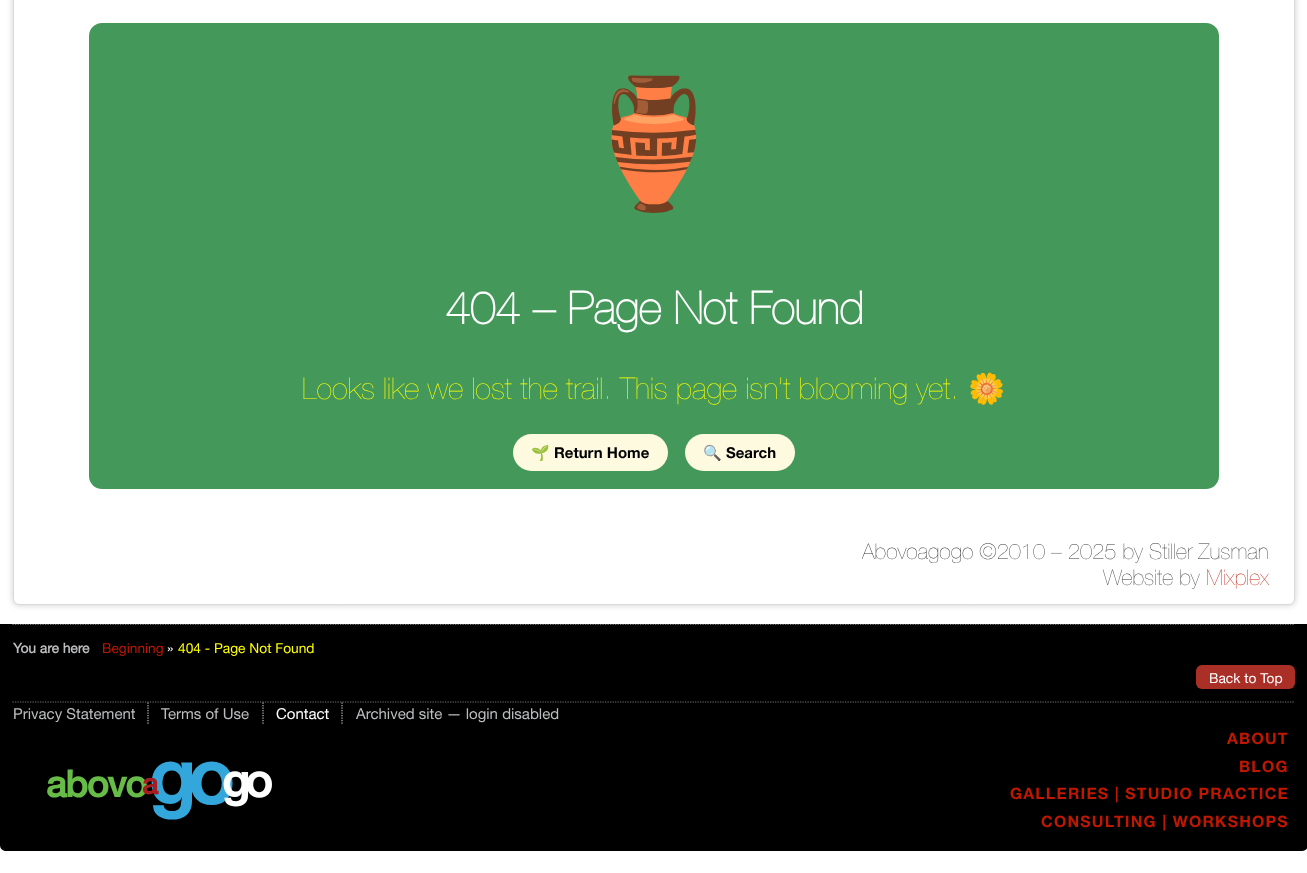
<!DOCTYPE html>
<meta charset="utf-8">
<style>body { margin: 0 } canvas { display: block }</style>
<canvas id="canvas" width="1307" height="873"></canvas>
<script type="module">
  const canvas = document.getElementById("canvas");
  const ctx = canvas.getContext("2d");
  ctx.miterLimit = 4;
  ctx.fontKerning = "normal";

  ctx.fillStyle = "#ffffff";
  ctx.fillRect(0, 0, 1307, 873);
  ctx.fillStyle = "#cccccc";
  ctx.filter = "blur(3px)";
  ctx.beginPath();
  ctx.roundRect(13, -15, 1282, 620, 6);
  ctx.fill();
  ctx.filter = "none";
  ctx.fillStyle = "#ffffff";
  ctx.beginPath();
  ctx.roundRect(13.5, -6.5, 1281, 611, 5.5);
  ctx.fill();
  ctx.strokeStyle = "#d9d9d9";
  ctx.stroke();
  ctx.fillStyle = "#449859";
  ctx.beginPath();
  ctx.roundRect(89, 23, 1130, 466, 13);
  ctx.fill();
  ctx.font = "125px Noto Color Emoji";
  ctx.fillStyle = "#ffffff";
  ctx.fillText("🏺", 576, 187);
  ctx.font = "bold 45px 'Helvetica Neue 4'";
  ctx.fillText("404 – Page Not Found", 445, 324);
  ctx.font = "200 30px Helvetica Neue";
  ctx.fillStyle = "#ffff00";
  ctx.fillText("Looks like we lost the trail. This page isn’t blooming yet.", 302, 399);
  ctx.font = "30px Noto Color Emoji";
  ctx.fillText("🌼", 968, 399);
  ctx.fillStyle = "#fdfadf";
  ctx.beginPath();
  ctx.roundRect(513, 434, 155, 37, 18.5);
  ctx.fill();
  ctx.font = "15px Noto Color Emoji";
  ctx.fillStyle = "#000000";
  ctx.fillText("🌱", 531, 458);
  ctx.font = "bold 15px 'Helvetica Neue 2'";
  ctx.fillText("Return Home", 554, 458);
  ctx.fillStyle = "#fdfadf";
  ctx.beginPath();
  ctx.roundRect(685, 434, 110, 37, 18.5);
  ctx.fill();
  ctx.font = "15px Noto Color Emoji";
  ctx.fillStyle = "#000000";
  ctx.fillText("🔍", 703, 458);
  ctx.font = "bold 15px 'Helvetica Neue 2'";
  ctx.fillText("Search", 726, 458);
  ctx.font = "200 21.75px Helvetica Neue";
  ctx.fillStyle = "#333333";
  ctx.fillText("Abovoagogo ©2010 – 2025 by Stiller Zusman", 862, 559);
  ctx.fillText("Website by", 1103, 585);
  ctx.fillStyle = "#c01700";
  ctx.fillText("Mixplex", 1206, 585);
  ctx.fillStyle = "#000000";
  ctx.beginPath();
  ctx.moveTo(0, 624);
  ctx.lineTo(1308, 624);
  ctx.lineTo(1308, 845);
  ctx.bezierCurveTo(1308, 848.5, 1305.5, 851, 1302, 851);
  ctx.lineTo(6, 851);
  ctx.bezierCurveTo(2.5, 851, 0, 848.5, 0, 845);
  ctx.closePath();
  ctx.fill();
  ctx.beginPath();
  ctx.moveTo(12.5, 624.5);
  ctx.lineTo(1295, 624.5);
  ctx.strokeStyle = "#717578";
  ctx.lineWidth = 1.2;
  ctx.setLineDash([1.25, 1.25]);
  ctx.stroke();
  ctx.font = "bold 13.75px Helvetica Neue";
  ctx.fillStyle = "#bbbdbf";
  ctx.fillText("You are here", 13, 653);
  ctx.font = "13.75px Helvetica Neue";
  ctx.fillStyle = "#c01700";
  ctx.fillText("Beginning", 102, 653);
  ctx.fillStyle = "#ffffff";
  ctx.fillText("»", 167, 653);
  ctx.fillStyle = "#ffff00";
  ctx.fillText("404 - Page Not Found", 178, 653);
  ctx.fillStyle = "#aa3027";
  ctx.beginPath();
  ctx.roundRect(1196, 665, 99, 24, 6);
  ctx.fill();
  ctx.fillStyle = "#ffffff";
  ctx.fillText("Back to Top", 1209, 683);
  ctx.beginPath();
  ctx.moveTo(12.5, 702);
  ctx.lineTo(1295, 702);
  ctx.stroke();
  ctx.beginPath();
  ctx.moveTo(148, 702.5);
  ctx.lineTo(148, 725);
  ctx.strokeStyle = "#bbbdbf";
  ctx.stroke();
  ctx.font = "15px Helvetica Neue";
  ctx.fillStyle = "#bbbdbf";
  ctx.fillText("Privacy Statement", 13, 719);
  ctx.beginPath();
  ctx.moveTo(263, 702.5);
  ctx.lineTo(263, 725);
  ctx.stroke();
  ctx.fillText("Terms of Use", 161, 719);
  ctx.beginPath();
  ctx.moveTo(342, 702.5);
  ctx.lineTo(342, 725);
  ctx.stroke();
  ctx.fillStyle = "#ffffff";
  ctx.fillText("Contact", 276, 719);
  ctx.fillStyle = "#bbbdbf";
  ctx.fillText("Archived site — login disabled", 356, 719);
  ctx.letterSpacing = "-1.25px";
  ctx.font = "bold 37px 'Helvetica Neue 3'";
  ctx.fillStyle = "#66bc47";
  ctx.fillText("abovo", 46, 797);
  ctx.letterSpacing = "-6px";
  ctx.font = "bold 76px 'Helvetica Neue 3'";
  ctx.fillStyle = "#33a6dc";
  ctx.fillText("go", 149, 804);
  ctx.letterSpacing = "-8px";
  ctx.font = "bold 46px 'Helvetica Neue 3'";
  ctx.fillStyle = "#ffffff";
  ctx.fillText("g", 222, 797);
  ctx.fillText("o", 245, 797);
  ctx.letterSpacing = "-1.25px";
  ctx.font = "bold 29px 'Helvetica Neue 3'";
  ctx.fillStyle = "#a71c20";
  ctx.fillText("a", 142, 794);
  ctx.letterSpacing = "1.25px";
  ctx.font = "bold 15.75px 'Helvetica Neue 2'";
  ctx.fillStyle = "#c01700";
  ctx.fillText("ABOUT", 1227, 744);
  ctx.fillText("BLOG", 1239, 772);
  ctx.fillText("GALLERIES | STUDIO PRACTICE", 1010, 799);
  ctx.fillText("CONSULTING | WORKSHOPS", 1041, 827);
</script>
